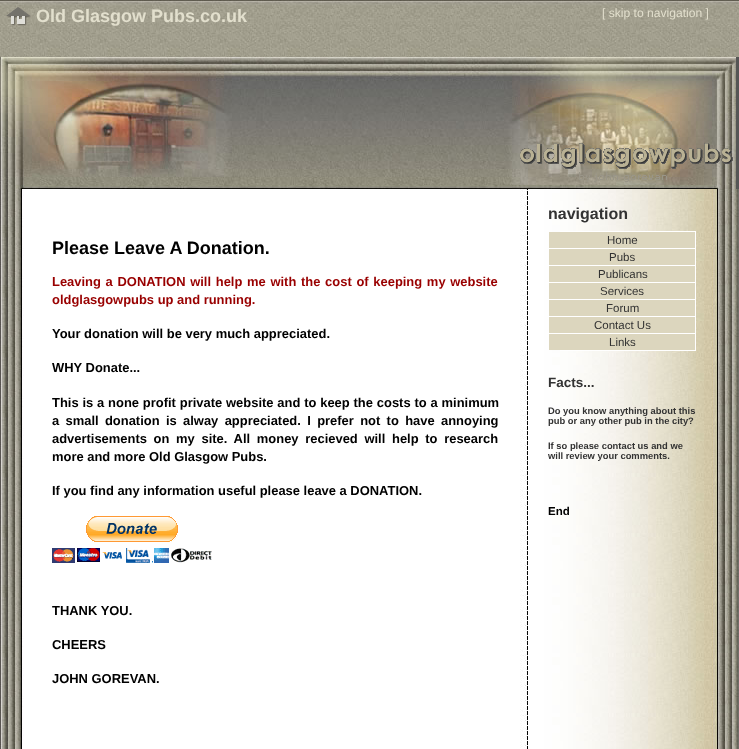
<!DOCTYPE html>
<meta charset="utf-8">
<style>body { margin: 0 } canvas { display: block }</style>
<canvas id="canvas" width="739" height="749"></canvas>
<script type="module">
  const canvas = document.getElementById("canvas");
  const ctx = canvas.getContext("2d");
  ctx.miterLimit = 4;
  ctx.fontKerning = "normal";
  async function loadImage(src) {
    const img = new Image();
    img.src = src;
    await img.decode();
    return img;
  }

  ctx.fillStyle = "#ffffff";
  ctx.fillRect(0, 0, 739, 749);
  ctx.drawImage(await loadImage("img1.png"), 0, 0, 739, 57);
  ctx.drawImage(await loadImage("img2.png"), 6, 7, 26, 19);
  ctx.font = "bold 18px Liberation Sans";
  ctx.fillStyle = "#e2dfcd";
  ctx.fillText("Old Glasgow Pubs.co.uk", 36, 22);
  ctx.font = "12.1px Liberation Sans";
  ctx.fillText("[ skip to navigation ]", 602, 17);
  ctx.drawImage(await loadImage("img3.png"), 0, 189, 739, 560);
  ctx.drawImage(await loadImage("img4.png"), 0, 57, 736, 132);
  ctx.drawImage(await loadImage("img5.png"), 520, 57, 219, 132);
  ctx.font = "bold 18px Liberation Sans";
  ctx.fillStyle = "#000000";
  ctx.fillText("Please Leave A Donation.", 52, 254);
  ctx.wordSpacing = "1.1px";
  ctx.font = "bold 12.95px Liberation Sans";
  ctx.fillStyle = "#990000";
  ctx.fillText("Leaving a DONATION will help me with the cost of keeping my website", 52, 286);
  ctx.wordSpacing = "0px";
  ctx.fillText("oldglasgowpubs up and running.", 52, 304);
  ctx.fillStyle = "#000000";
  ctx.fillText("Your donation will be very much appreciated.", 52, 338);
  ctx.fillText("WHY Donate...", 52, 372);
  ctx.wordSpacing = "0.25px";
  ctx.fillText("This is a none profit private website and to keep the costs to a minimum", 52, 407);
  ctx.wordSpacing = "2.75px";
  ctx.fillText("a small donation is alway appreciated. I prefer not to have annoying", 52, 425);
  ctx.wordSpacing = "3.1px";
  ctx.fillText("advertisements on my site. All money recieved will help to research", 52, 443);
  ctx.wordSpacing = "0px";
  ctx.fillText("more and more Old Glasgow Pubs.", 52, 461);
  ctx.fillText("If you find any information useful please leave a DONATION.", 52, 495);
  ctx.drawImage(await loadImage("img6.png"), 52, 516, 160, 47);
  ctx.fillText("THANK YOU.", 52, 615);
  ctx.fillText("CHEERS", 52, 649);
  ctx.fillText("JOHN GOREVAN.", 52, 683);
  ctx.font = "bold 16px Liberation Sans";
  ctx.fillStyle = "#333333";
  ctx.fillText("navigation", 548, 219);
  ctx.fillStyle = "#ffffff";
  ctx.fillRect(560, 231, 136, 1);
  ctx.fillStyle = "#dcd6be";
  ctx.fillRect(549, 232, 146, 16);
  ctx.fillStyle = "#ffffff";
  ctx.fillRect(695, 232, 1, 119);
  ctx.fillRect(560, 248, 136, 1);
  ctx.font = "11.5px Liberation Sans";
  ctx.fillStyle = "#333333";
  ctx.fillText("Home", 607, 244);
  ctx.fillStyle = "#dcd6be";
  ctx.fillRect(549, 249, 146, 16);
  ctx.fillStyle = "#ffffff";
  ctx.fillRect(548, 265, 148, 1);
  ctx.fillStyle = "#333333";
  ctx.fillText("Pubs", 609, 261);
  ctx.fillStyle = "#dcd6be";
  ctx.fillRect(549, 266, 146, 16);
  ctx.fillStyle = "#ffffff";
  ctx.fillRect(548, 282, 148, 1);
  ctx.fillStyle = "#333333";
  ctx.fillText("Publicans", 598, 278);
  ctx.fillStyle = "#dcd6be";
  ctx.fillRect(549, 283, 146, 16);
  ctx.fillStyle = "#ffffff";
  ctx.fillRect(548, 299, 148, 1);
  ctx.fillStyle = "#333333";
  ctx.fillText("Services", 600, 295);
  ctx.fillStyle = "#dcd6be";
  ctx.fillRect(549, 300, 146, 16);
  ctx.fillStyle = "#ffffff";
  ctx.fillRect(548, 316, 148, 1);
  ctx.fillStyle = "#333333";
  ctx.fillText("Forum", 606, 312);
  ctx.fillStyle = "#dcd6be";
  ctx.fillRect(549, 317, 146, 16);
  ctx.fillStyle = "#ffffff";
  ctx.fillRect(548, 333, 148, 1);
  ctx.fillStyle = "#333333";
  ctx.fillText("Contact Us", 594, 329);
  ctx.fillStyle = "#dcd6be";
  ctx.fillRect(549, 334, 146, 16);
  ctx.fillStyle = "#ffffff";
  ctx.fillRect(560, 350, 136, 1);
  ctx.fillStyle = "#333333";
  ctx.fillText("Links", 609, 346);
  ctx.font = "bold 13.5px Liberation Sans";
  ctx.fillText("Facts...", 548, 387);
  ctx.font = "bold 9.4px Liberation Sans";
  ctx.fillText("Do you know anything about this", 548, 414);
  ctx.fillText("pub or any other pub in the city?", 548, 424);
  ctx.fillText("If so please contact us and we", 548, 449);
  ctx.fillText("will review your comments.", 548, 459);
  ctx.font = "bold 11.5px Liberation Sans";
  ctx.fillStyle = "#000000";
  ctx.fillText("End", 548, 515);
</script>
